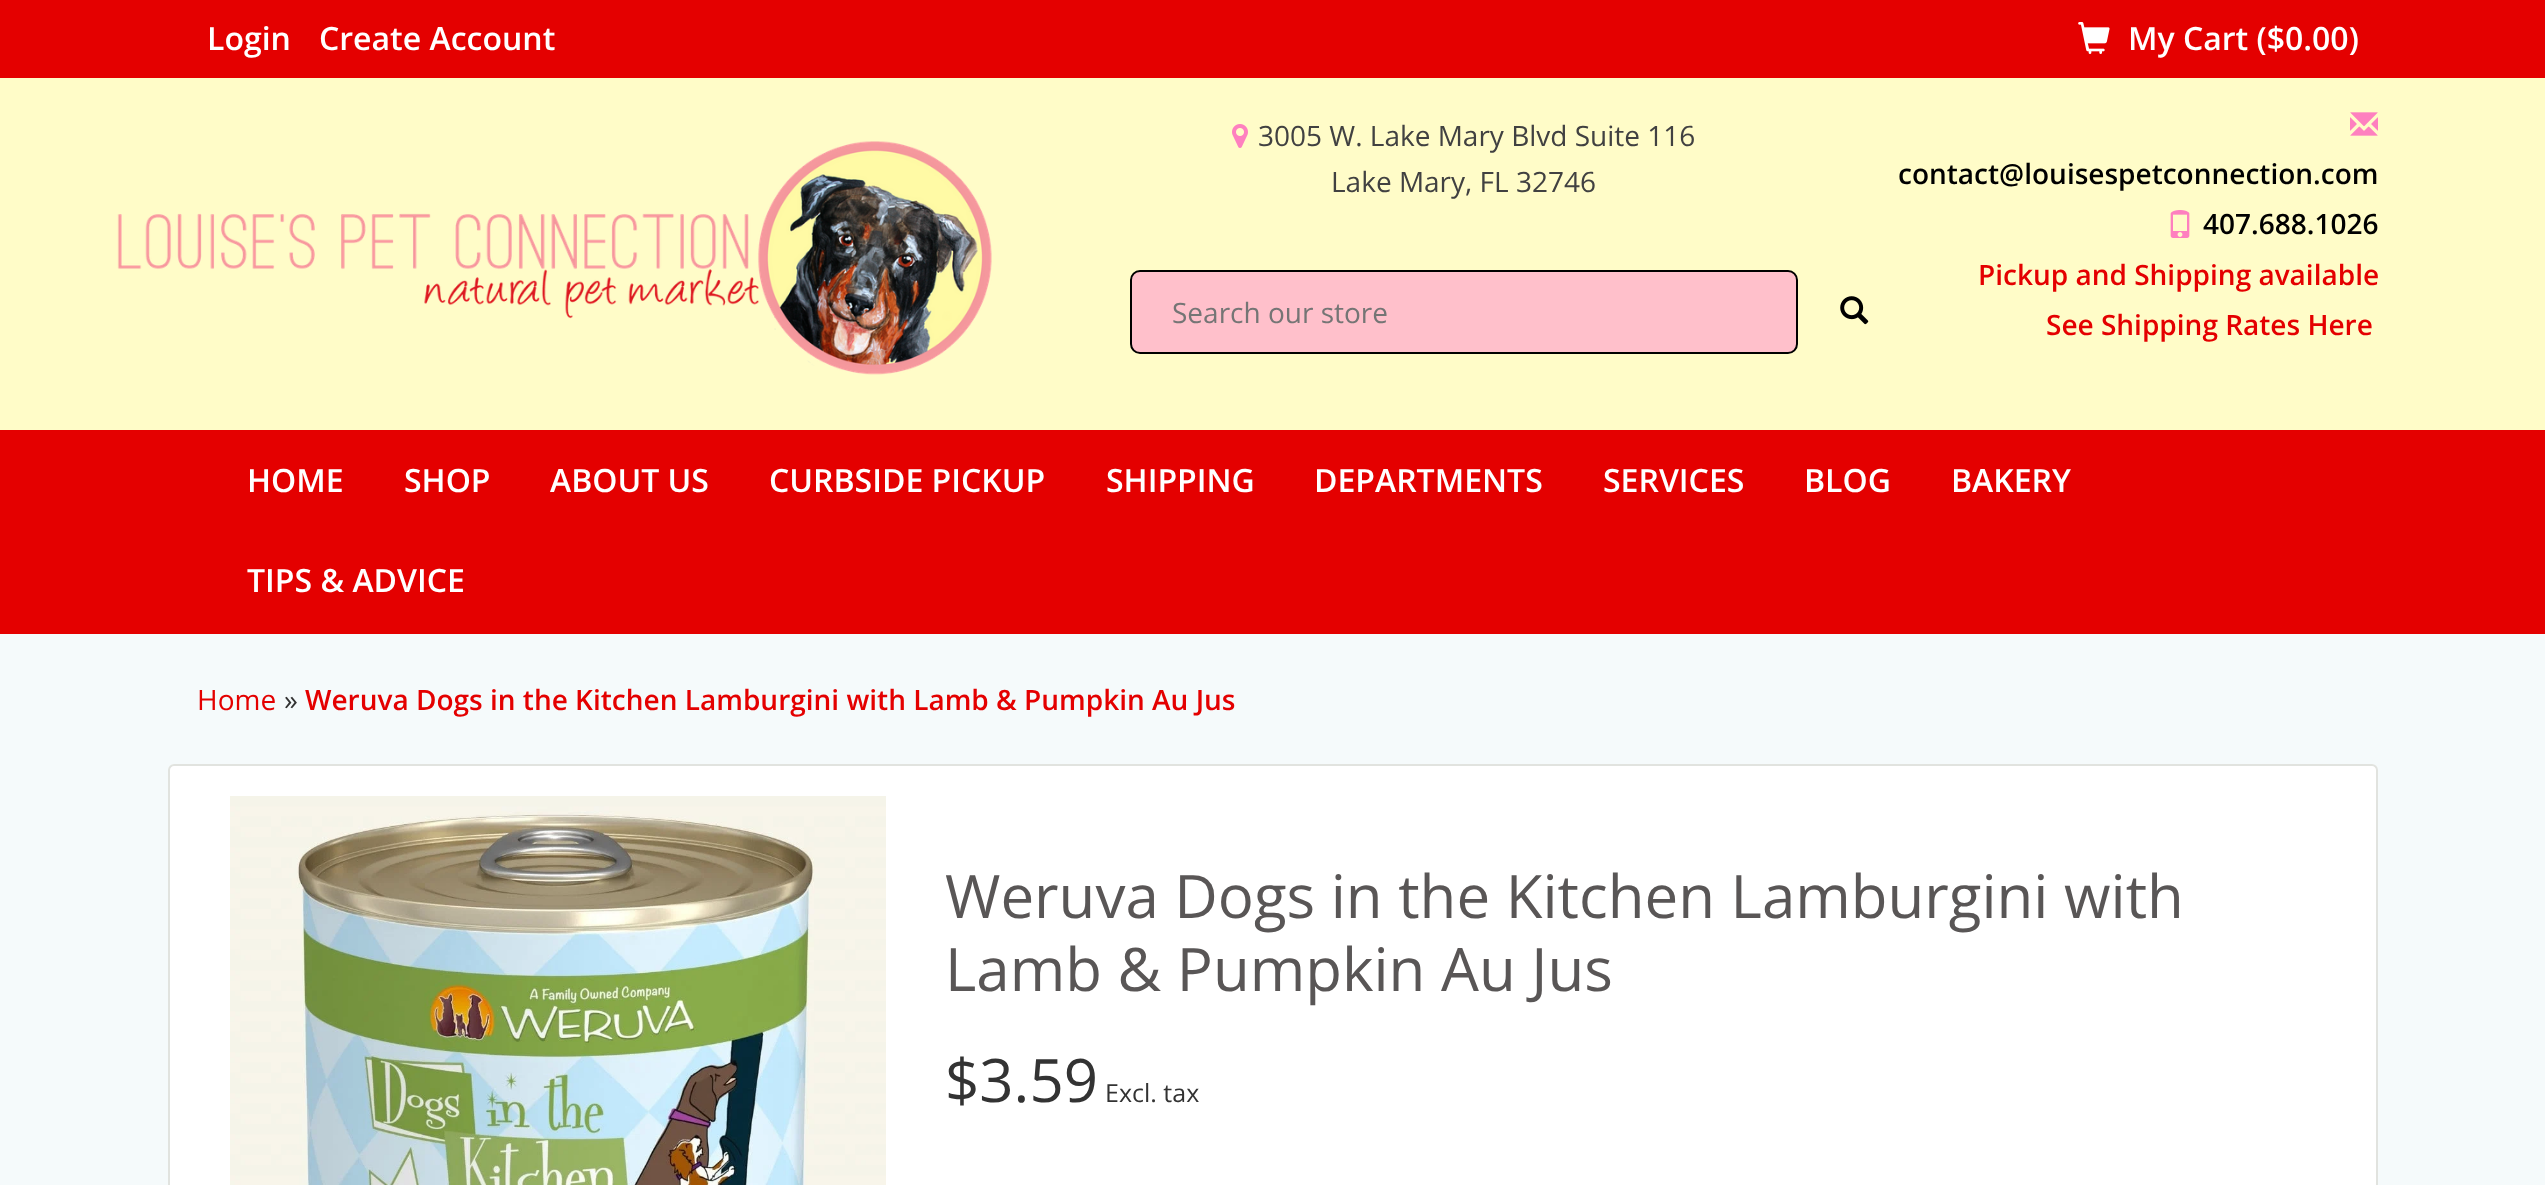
<!DOCTYPE html>
<meta charset="utf-8">
<style>body { margin: 0 } canvas { display: block }</style>
<canvas id="canvas" width="2545" height="1185"></canvas>
<script type="module">
  const canvas = document.getElementById("canvas");
  const ctx = canvas.getContext("2d");
  ctx.miterLimit = 4;
  ctx.fontKerning = "normal";
  async function loadImage(src) {
    const img = new Image();
    img.src = src;
    await img.decode();
    return img;
  }

  ctx.fillStyle = "#f5fafb";
  ctx.fillRect(0, 0, 2545, 1185);
  ctx.fillStyle = "#fffcc8";
  ctx.fillRect(0, 78, 2545, 352);
  ctx.fillStyle = "#e40000";
  ctx.fillRect(0, 0, 2545, 78);
  ctx.font = "600 32px Open Sans";
  ctx.fillStyle = "#ffffff";
  ctx.fillText("Login", 207, 50);
  ctx.fillText("Create Account", 319, 50);
  ctx.drawImage(await loadImage("img1.png"), 2078, 22, 32, 32);
  ctx.fillText("My Cart ($0.00)", 2128, 50);
  ctx.drawImage(await loadImage("img2.png"), 117, 141, 875, 234);
  ctx.drawImage(await loadImage("img3.png"), 1232, 124, 16, 24);
  ctx.font = "28px Open Sans";
  ctx.fillStyle = "#414141";
  ctx.fillText("3005 W. Lake Mary Blvd Suite 116", 1258, 146);
  ctx.fillText("Lake Mary, FL 32746", 1331, 192);
  ctx.fillStyle = "#ffc0cb";
  ctx.beginPath();
  ctx.roundRect(1131, 271, 666, 82, 9);
  ctx.fill();
  ctx.strokeStyle = "#000000";
  ctx.lineWidth = 2;
  ctx.stroke();
  ctx.fillStyle = "#757575";
  ctx.fillText("Search our store", 1172, 323);
  ctx.drawImage(await loadImage("img4.png"), 1840, 296, 29, 29);
  ctx.drawImage(await loadImage("img5.png"), 2350, 112, 28, 24);
  ctx.font = "600 28px Open Sans";
  ctx.fillStyle = "#000000";
  ctx.fillText("contact@louisespetconnection.com", 1898, 184);
  ctx.drawImage(await loadImage("img6.png"), 2170, 210, 20, 28);
  ctx.fillText("407.688.1026", 2203, 234);
  ctx.fillStyle = "#e40000";
  ctx.fillText("Pickup and Shipping available", 1978, 285);
  ctx.fillText("See Shipping Rates Here", 2046, 335);
  ctx.fillRect(0, 430, 2545, 204);
  ctx.font = "600 32px Open Sans";
  ctx.fillStyle = "#ffffff";
  ctx.fillText("HOME", 247, 492);
  ctx.fillText("SHOP", 404, 492);
  ctx.fillText("ABOUT US", 550, 492);
  ctx.fillText("CURBSIDE PICKUP", 769, 492);
  ctx.fillText("SHIPPING", 1106, 492);
  ctx.fillText("DEPARTMENTS", 1314, 492);
  ctx.fillText("SERVICES", 1603, 492);
  ctx.fillText("BLOG", 1804, 492);
  ctx.fillText("BAKERY", 1951, 492);
  ctx.fillText("TIPS & ADVICE", 247, 592);
  ctx.font = "28px Open Sans";
  ctx.fillStyle = "#e40000";
  ctx.fillText("Home", 197, 710);
  ctx.fillStyle = "#333333";
  ctx.fillText("»", 284, 710);
  ctx.font = "600 28px Open Sans";
  ctx.fillStyle = "#e40000";
  ctx.fillText("Weruva Dogs in the Kitchen Lamburgini with Lamb & Pumpkin Au Jus", 305, 710);
  ctx.fillStyle = "#ffffff";
  ctx.beginPath();
  ctx.roundRect(168, 764, 2210, 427, 6);
  ctx.fill();
  ctx.beginPath();
  ctx.moveTo(170.5, 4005.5);
  ctx.bezierCurveTo(169.5, 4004.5, 169, 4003.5, 169, 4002);
  ctx.lineTo(169, 770);
  ctx.bezierCurveTo(169, 768.5, 169.5, 767.5, 170.5, 766.5);
  ctx.bezierCurveTo(171.5, 765.5, 172.5, 765, 174, 765);
  ctx.lineTo(2372, 765);
  ctx.bezierCurveTo(2373.5, 765, 2374.5, 765.5, 2375.5, 766.5);
  ctx.bezierCurveTo(2376.5, 767.5, 2377, 768.5, 2377, 770);
  ctx.lineTo(2377, 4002);
  ctx.bezierCurveTo(2377, 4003.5, 2376.5, 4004.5, 2375.5, 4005.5);
  ctx.strokeStyle = "#e1e3df";
  ctx.stroke();
  ctx.drawImage(await loadImage("img7.png"), 230, 796, 656, 389);
  ctx.font = "60px Open Sans";
  ctx.fillStyle = "#595656";
  ctx.fillText("Weruva Dogs in the Kitchen Lamburgini with", 945, 918);
  ctx.fillText("Lamb & Pumpkin Au Jus", 945, 991);
  ctx.fillStyle = "#333333";
  ctx.fillText("$3.59", 945, 1102);
  ctx.font = "25px Open Sans";
  ctx.fillText("Excl. tax", 1105, 1102);
</script>
